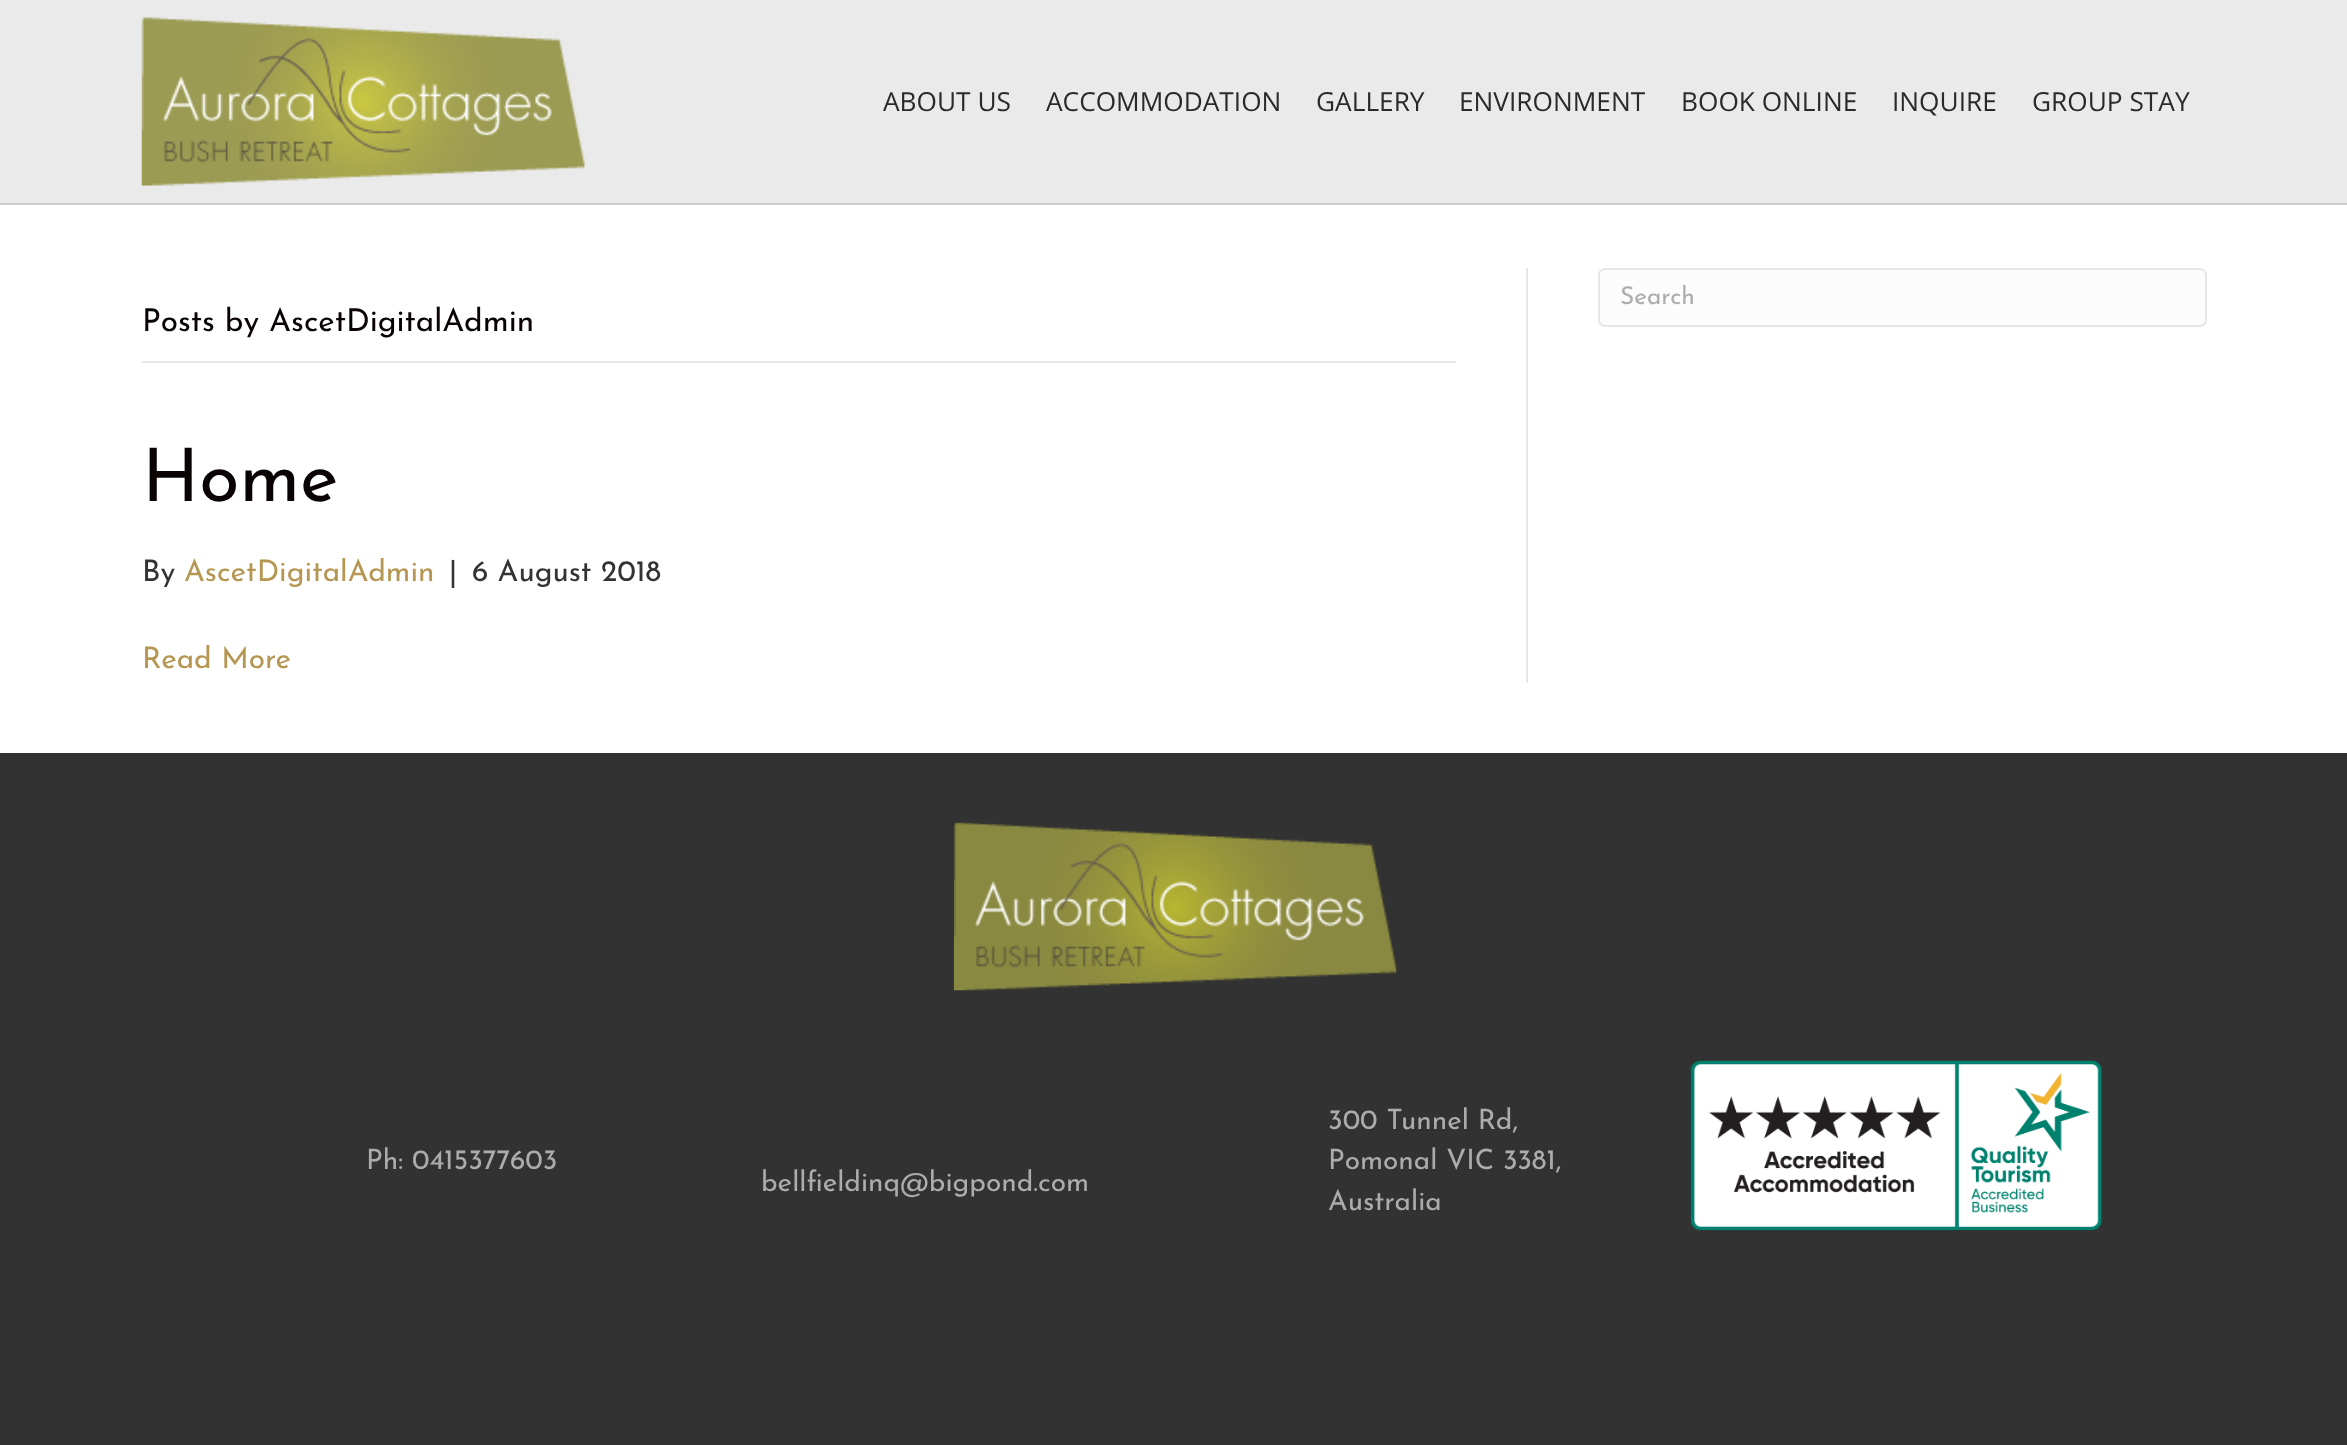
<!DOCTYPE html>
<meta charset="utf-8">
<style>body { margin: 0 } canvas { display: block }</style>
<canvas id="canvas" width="2347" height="1445"></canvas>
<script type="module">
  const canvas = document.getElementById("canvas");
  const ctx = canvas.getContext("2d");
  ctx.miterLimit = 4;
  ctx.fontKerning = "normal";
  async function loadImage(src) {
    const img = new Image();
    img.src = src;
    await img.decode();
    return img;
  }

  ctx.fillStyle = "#ffffff";
  ctx.fillRect(0, 0, 2347, 1445);
  ctx.fillStyle = "#eaeaea";
  ctx.fillRect(0, 0, 2347, 203);
  ctx.fillStyle = "#cccccc";
  ctx.fillRect(0, 203, 2347, 2);
  ctx.drawImage(await loadImage("img1.png"), 141, 17, 444, 169);
  ctx.font = "26.25px Open Sans";
  ctx.fillStyle = "#2a2a2a";
  ctx.fillText("ABOUT US", 883, 111);
  ctx.fillText("ACCOMMODATION", 1046, 111);
  ctx.fillText("GALLERY", 1316, 111);
  ctx.fillText("ENVIRONMENT", 1459, 111);
  ctx.fillText("BOOK ONLINE", 1681, 111);
  ctx.fillText("INQUIRE", 1892, 111);
  ctx.fillText("GROUP STAY", 2032, 111);
  ctx.fillStyle = "#fcfcfc";
  ctx.beginPath();
  ctx.roundRect(1599, 269, 607, 57, 6);
  ctx.fill();
  ctx.strokeStyle = "#e6e6e6";
  ctx.lineWidth = 2;
  ctx.stroke();
  ctx.font = "24.5px Josefin Sans";
  ctx.fillStyle = "#acacac";
  ctx.fillText("Search", 1620, 304);
  ctx.fillStyle = "#e6e6e6";
  ctx.fillRect(1526, 268, 2, 415);
  ctx.fillRect(142, 361, 1314, 2);
  ctx.font = "31.5px Josefin Sans";
  ctx.fillStyle = "#0a0303";
  ctx.fillText("Posts by AscetDigitalAdmin", 142, 331);
  ctx.font = "73.5px Josefin Sans";
  ctx.fillText("Home", 142, 501);
  ctx.font = "29.75px Josefin Sans";
  ctx.fillStyle = "#333333";
  ctx.fillText("By", 142, 581);
  ctx.fillStyle = "#b59753";
  ctx.fillText("AscetDigitalAdmin", 184, 581);
  ctx.fillStyle = "#333333";
  ctx.fillText("|", 449, 581);
  ctx.fillText("6 August 2018", 472, 581);
  ctx.fillStyle = "#b59753";
  ctx.fillText("Read More", 142, 668);
  ctx.fillStyle = "#323232";
  ctx.fillRect(0, 753, 2347, 692);
  ctx.drawImage(await loadImage("img2.png"), 953, 822, 444, 169);
  ctx.font = "28px Josefin Sans";
  ctx.fillStyle = "#acacac";
  ctx.fillText("Ph: 0415377603", 366, 1169);
  ctx.fillText("300 Tunnel Rd,", 1328, 1129);
  ctx.fillText("Pomonal VIC 3381,", 1328, 1169);
  ctx.fillText("Australia", 1328, 1210);
  ctx.drawImage(await loadImage("img3.png"), 1690, 1060, 412, 171);
  ctx.fillText("bellfieldinq@bigpond.com", 761, 1191);
</script>
